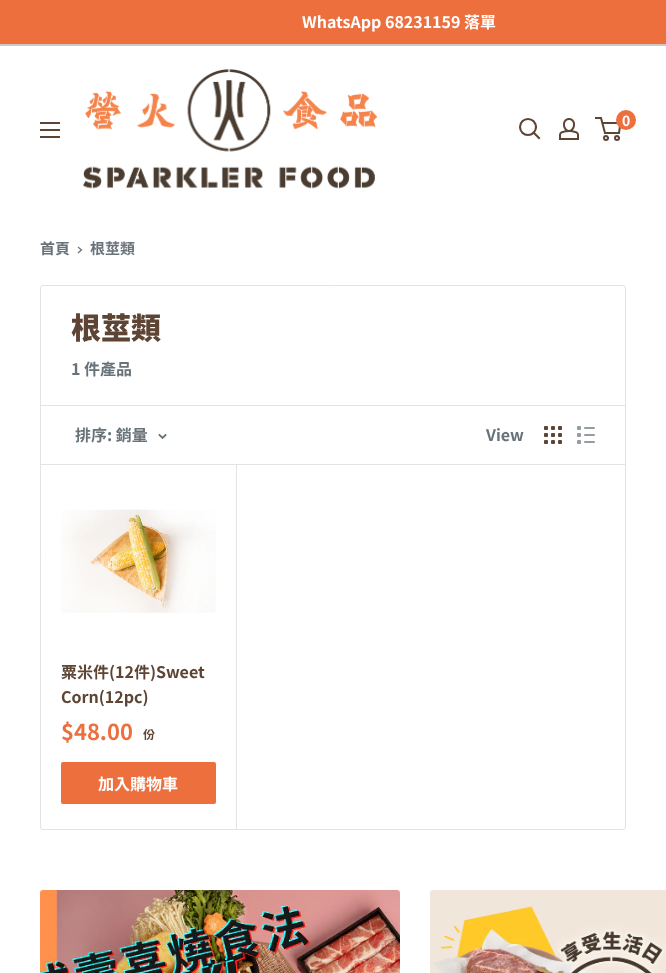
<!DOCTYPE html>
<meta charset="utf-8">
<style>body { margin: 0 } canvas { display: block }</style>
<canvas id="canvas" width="666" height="973"></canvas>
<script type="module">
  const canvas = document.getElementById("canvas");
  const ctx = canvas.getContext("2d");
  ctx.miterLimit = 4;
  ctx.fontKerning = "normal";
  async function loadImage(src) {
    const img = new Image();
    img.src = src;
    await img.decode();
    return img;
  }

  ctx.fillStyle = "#ffffff";
  ctx.fillRect(0, 0, 666, 973);
  ctx.fillStyle = "#cfc7c2";
  ctx.fillRect(0, 44, 666, 2);
  ctx.fillStyle = "#ed6f3d";
  ctx.fillRect(0, 0, 666, 44);
  ctx.font = "bold 16px Noto Sans TC";
  ctx.fillStyle = "#ffffff";
  ctx.fillText("WhatsApp 68231159 落單", 302, 28);
  ctx.drawImage(await loadImage("img1.png"), 40, 122, 20, 16);
  ctx.drawImage(await loadImage("img2.png"), 83, 69, 295, 120);
  ctx.beginPath();
  ctx.moveTo(539, 138);
  ctx.lineTo(533.5, 132.5);
  ctx.strokeStyle = "#5e4434";
  ctx.lineWidth = 2.1;
  ctx.lineCap = "square";
  ctx.stroke();
  ctx.beginPath();
  ctx.arc(528, 127, 8, 0, Math.PI * 2);
  ctx.stroke();
  ctx.drawImage(await loadImage("img3.png"), 559, 118, 20, 22);
  ctx.beginPath();
  ctx.arc(606, 138, 2, 0, Math.PI * 2);
  ctx.lineWidth = 2;
  ctx.stroke();
  ctx.beginPath();
  ctx.arc(617, 138, 2, 0, Math.PI * 2);
  ctx.stroke();
  ctx.beginPath();
  ctx.moveTo(602.5, 123);
  ctx.lineTo(620.5, 123);
  ctx.lineTo(619, 133);
  ctx.lineTo(605, 133);
  ctx.lineTo(601, 118);
  ctx.lineTo(595, 118);
  ctx.lineCap = "butt";
  ctx.stroke();
  ctx.fillStyle = "#ed6f3d";
  ctx.beginPath();
  ctx.arc(626, 120, 10, 0, Math.PI * 2);
  ctx.fill();
  ctx.font = "bold 14px Noto Sans TC";
  ctx.fillStyle = "#ffffff";
  ctx.fillText("0", 622, 126);
  ctx.font = "bold 15px Noto Sans TC";
  ctx.fillStyle = "#677279";
  ctx.fillText("首頁", 40, 254);
  ctx.beginPath();
  ctx.moveTo(78.5, 247.5);
  ctx.lineTo(81.5, 250);
  ctx.lineTo(78.5, 252.5);
  ctx.strokeStyle = "#677279";
  ctx.lineWidth = 1.3;
  ctx.lineCap = "square";
  ctx.stroke();
  ctx.fillText("根莖類", 90, 254);
  ctx.beginPath();
  ctx.roundRect(40.5, 285.5, 585, 544, 2.5);
  ctx.strokeStyle = "#e1e3e4";
  ctx.lineWidth = 1;
  ctx.stroke();
  ctx.font = "900 30px Noto Sans TC";
  ctx.fillStyle = "#5e4434";
  ctx.fillText("根莖類", 71, 339);
  ctx.font = "bold 16px Noto Sans TC";
  ctx.fillStyle = "#677279";
  ctx.fillText("1 件產品", 71, 375);
  ctx.fillStyle = "#e1e3e4";
  ctx.fillRect(41, 405, 584, 1);
  ctx.fillRect(236, 464, 1, 365);
  ctx.fillRect(41, 464, 584, 1);
  ctx.fillStyle = "#677279";
  ctx.fillText("排序: 銷量", 75, 441);
  ctx.beginPath();
  ctx.moveTo(165.5, 435);
  ctx.lineTo(162.5, 438);
  ctx.lineTo(159.5, 435);
  ctx.strokeStyle = "#677279";
  ctx.lineWidth = 1.9;
  ctx.stroke();
  ctx.fillText("View", 486, 441);
  ctx.drawImage(await loadImage("img4.png"), 544, 426, 18, 18);
  ctx.drawImage(await loadImage("img5.png"), 577, 426, 18, 18);
  ctx.drawImage(await loadImage("img6.png"), 61, 509, 155, 104);
  ctx.fillStyle = "#5e4434";
  ctx.fillText("粟米件(12件)Sweet", 61, 678);
  ctx.fillText("Corn(12pc)", 61, 703);
  ctx.font = "bold 22px Noto Sans TC";
  ctx.fillStyle = "#ed6f3d";
  ctx.fillText("$48.00", 61, 740);
  ctx.font = "bold 12px Noto Sans TC";
  ctx.fillStyle = "#5e4434";
  ctx.fillText("份", 143, 739);
  ctx.fillStyle = "#ed6f3d";
  ctx.beginPath();
  ctx.roundRect(61, 762, 155, 42, 2);
  ctx.fill();
  ctx.font = "bold 16px Noto Sans TC";
  ctx.fillStyle = "#ffffff";
  ctx.fillText("加入購物車", 98, 790);
  ctx.drawImage(await loadImage("img7.png"), 40, 890, 360, 83);
  ctx.drawImage(await loadImage("img8.png"), 430, 890, 236, 83);
</script>
